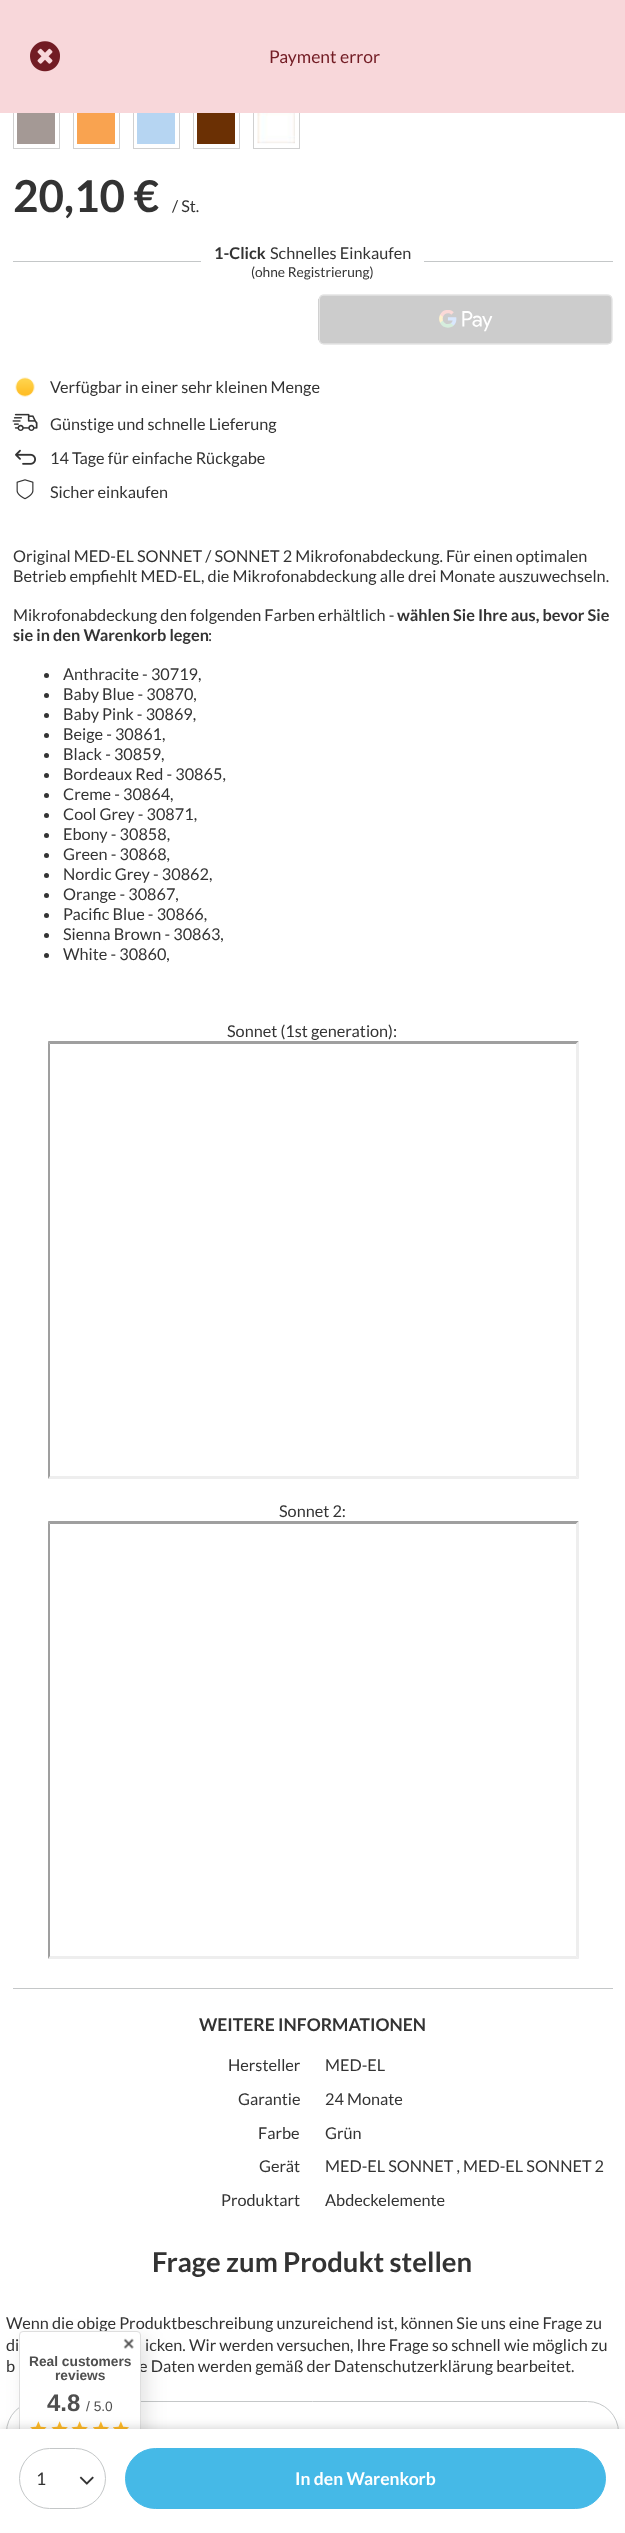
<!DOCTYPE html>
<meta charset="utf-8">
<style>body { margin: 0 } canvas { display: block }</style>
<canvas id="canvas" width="625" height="2533"></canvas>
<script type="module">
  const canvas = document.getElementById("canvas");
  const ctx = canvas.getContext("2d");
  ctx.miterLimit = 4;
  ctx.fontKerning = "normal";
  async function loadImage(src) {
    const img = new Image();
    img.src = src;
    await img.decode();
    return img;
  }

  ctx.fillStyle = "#ffffff";
  ctx.fillRect(0, 0, 625, 2533);
  ctx.strokeStyle = "#d0d0d0";
  ctx.strokeRect(13.5, 101.5, 46, 47);
  ctx.strokeRect(73.5, 101.5, 46, 47);
  ctx.strokeRect(133.5, 101.5, 46, 47);
  ctx.strokeRect(193.5, 101.5, 46, 47);
  ctx.strokeRect(253.5, 101.5, 46, 47);
  ctx.fillStyle = "#f8d7da";
  ctx.fillRect(0, 0, 625, 113);
  ctx.drawImage(await loadImage("img1.png"), 30, 41, 30, 31);
  ctx.font = "17.5px Lato";
  ctx.fillStyle = "#721c24";
  ctx.fillText("Payment error", 269, 63);
  ctx.fillStyle = "#a49995";
  ctx.fillRect(17, 113, 38, 31);
  ctx.fillStyle = "#f9a350";
  ctx.fillRect(77, 113, 38, 31);
  ctx.fillStyle = "#b6d5f2";
  ctx.fillRect(137, 113, 38, 31);
  ctx.fillStyle = "#6b3004";
  ctx.fillRect(197, 113, 38, 31);
  ctx.drawImage(await loadImage("img2.png"), 257, 113, 38, 31);
  ctx.font = "bold 44px Lato";
  ctx.fillStyle = "#333333";
  ctx.fillText("20,10 €", 13, 212);
  ctx.font = "16.25px Lato";
  ctx.fillText("/ St.", 172, 212);
  ctx.fillStyle = "#c4c7c8";
  ctx.fillRect(13, 261, 188, 1);
  ctx.font = "bold 16.25px Lato";
  ctx.fillStyle = "#333333";
  ctx.fillText("1-Click", 214, 259);
  ctx.font = "16.25px Lato";
  ctx.fillText("Schnelles Einkaufen", 270, 259);
  ctx.font = "13.75px Lato";
  ctx.fillText("(ohne Registrierung)", 251, 277);
  ctx.fillStyle = "#c4c7c8";
  ctx.fillRect(424, 261, 189, 1);
  ctx.drawImage(await loadImage("img3.png"), 318, 294, 295, 51);
  ctx.drawImage(await loadImage("img4.png"), 15, 377, 20, 20);
  ctx.font = "16.25px Lato";
  ctx.fillStyle = "#333333";
  ctx.fillText("Verfügbar in einer sehr kleinen Menge", 50, 393);
  ctx.drawImage(await loadImage("img5.png"), 12, 413, 26, 18);
  ctx.fillText("Günstige und schnelle Lieferung", 50, 430);
  ctx.drawImage(await loadImage("img6.png"), 15, 449, 21, 16);
  ctx.fillText("14 Tage für einfache Rückgabe", 50, 464);
  ctx.drawImage(await loadImage("img7.png"), 16, 479, 18, 21);
  ctx.fillText("Sicher einkaufen", 50, 498);
  ctx.beginPath();
  ctx.roundRect(6.5, 2401.5, 612, 62, 31);
  ctx.strokeStyle = "#c4c7c8";
  ctx.stroke();
  ctx.fillText("Wenn die obige Produktbeschreibung unzureichend ist, können Sie uns eine Frage zu", 6, 2329);
  ctx.fillText("e Daten werden gemäß der Datenschutzerklärung bearbeitet.", 139, 2372);
  ctx.fillStyle = "rgba(0, 0, 0, 0.1)";
  ctx.filter = "blur(9.5px)";
  ctx.beginPath();
  ctx.roundRect(25, 2338, 123, 183, 4);
  ctx.fill();
  ctx.filter = "none";
  ctx.fillStyle = "#ffffff";
  ctx.beginPath();
  ctx.roundRect(19.5, 2331.5, 121, 183, 3.5);
  ctx.fill();
  ctx.strokeStyle = "#dedede";
  ctx.stroke();
  ctx.drawImage(await loadImage("img10.png"), 30, 2421, 17, 8);
  ctx.drawImage(await loadImage("img11.png"), 51, 2421, 17, 8);
  ctx.drawImage(await loadImage("img11.png"), 71, 2421, 17, 8);
  ctx.drawImage(await loadImage("img12.png"), 93, 2421, 16, 8);
  ctx.drawImage(await loadImage("img12.png"), 113, 2421, 16, 8);
  ctx.fillStyle = "rgba(0, 0, 0, 0.2)";
  ctx.filter = "blur(6px)";
  ctx.beginPath();
  ctx.rect(0, 2429, 625, 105);
  ctx.fill();
  ctx.filter = "none";
  ctx.fillStyle = "#ffffff";
  ctx.fillRect(0, 2429, 625, 104);
  ctx.beginPath();
  ctx.roundRect(19.5, 2448.5, 86, 60, 30);
  ctx.strokeStyle = "#c4c7c8";
  ctx.stroke();
  ctx.font = "17.5px Lato";
  ctx.fillStyle = "#333333";
  ctx.fillText("1", 36, 2485);
  ctx.drawImage(await loadImage("img8.png"), 79, 2476, 15, 9);
  ctx.fillStyle = "#45b9e7";
  ctx.beginPath();
  ctx.roundRect(125.5, 2448.5, 480, 60, 30);
  ctx.fill();
  ctx.strokeStyle = "#45b9e7";
  ctx.stroke();
  ctx.font = "bold 17.5px Lato";
  ctx.fillStyle = "#ffffff";
  ctx.fillText("In den Warenkorb", 295, 2485);
  ctx.font = "16.25px Lato";
  ctx.fillStyle = "#333333";
  ctx.fillText("Original MED-EL SONNET / SONNET 2 Mikrofonabdeckung. Für einen optimalen", 13, 562);
  ctx.fillText("Betrieb empfiehlt MED-EL, die Mikrofonabdeckung alle drei Monate auszuwechseln.", 13, 582);
  ctx.fillText("Mikrofonabdeckung den folgenden Farben erhältlich -", 13, 621);
  ctx.font = "bold 16.25px Lato";
  ctx.fillText("wählen Sie Ihre aus, bevor Sie", 397, 621);
  ctx.fillText("sie in den Warenkorb legen", 13, 641);
  ctx.font = "16.25px Lato";
  ctx.fillText(":", 208, 641);
  ctx.beginPath();
  ctx.arc(46.5, 675.5, 2.5, 0, Math.PI * 2);
  ctx.fill();
  ctx.fillText("Anthracite - 30719,", 63, 680);
  ctx.beginPath();
  ctx.arc(46.5, 695.5, 2.5, 0, Math.PI * 2);
  ctx.fill();
  ctx.fillText("Baby Blue - 30870,", 63, 700);
  ctx.beginPath();
  ctx.arc(46.5, 715.5, 2.5, 0, Math.PI * 2);
  ctx.fill();
  ctx.fillText("Baby Pink - 30869,", 63, 720);
  ctx.beginPath();
  ctx.arc(46.5, 735.5, 2.5, 0, Math.PI * 2);
  ctx.fill();
  ctx.fillText("Beige - 30861,", 63, 740);
  ctx.beginPath();
  ctx.arc(46.5, 755.5, 2.5, 0, Math.PI * 2);
  ctx.fill();
  ctx.fillText("Black - 30859,", 63, 760);
  ctx.beginPath();
  ctx.arc(46.5, 775.5, 2.5, 0, Math.PI * 2);
  ctx.fill();
  ctx.fillText("Bordeaux Red - 30865,", 63, 780);
  ctx.beginPath();
  ctx.arc(46.5, 795.5, 2.5, 0, Math.PI * 2);
  ctx.fill();
  ctx.fillText("Creme - 30864,", 63, 800);
  ctx.beginPath();
  ctx.arc(46.5, 815.5, 2.5, 0, Math.PI * 2);
  ctx.fill();
  ctx.fillText("Cool Grey - 30871,", 63, 820);
  ctx.beginPath();
  ctx.arc(46.5, 835.5, 2.5, 0, Math.PI * 2);
  ctx.fill();
  ctx.fillText("Ebony - 30858,", 63, 840);
  ctx.beginPath();
  ctx.arc(46.5, 855.5, 2.5, 0, Math.PI * 2);
  ctx.fill();
  ctx.fillText("Green - 30868,", 63, 860);
  ctx.beginPath();
  ctx.arc(46.5, 875.5, 2.5, 0, Math.PI * 2);
  ctx.fill();
  ctx.fillText("Nordic Grey - 30862,", 63, 880);
  ctx.beginPath();
  ctx.arc(46.5, 895.5, 2.5, 0, Math.PI * 2);
  ctx.fill();
  ctx.fillText("Orange - 30867,", 63, 900);
  ctx.beginPath();
  ctx.arc(46.5, 915.5, 2.5, 0, Math.PI * 2);
  ctx.fill();
  ctx.fillText("Pacific Blue - 30866,", 63, 920);
  ctx.beginPath();
  ctx.arc(46.5, 935.5, 2.5, 0, Math.PI * 2);
  ctx.fill();
  ctx.fillText("Sienna Brown - 30863,", 63, 940);
  ctx.beginPath();
  ctx.arc(46.5, 955.5, 2.5, 0, Math.PI * 2);
  ctx.fill();
  ctx.fillText("White - 30860,", 63, 960);
  ctx.fillText("Sonnet (1st generation):", 227, 1037);
  ctx.fillStyle = "#9f9f9f";
  ctx.beginPath();
  ctx.moveTo(48, 1041);
  ctx.lineTo(579, 1041);
  ctx.lineTo(576, 1044);
  ctx.lineTo(50, 1044);
  ctx.closePath();
  ctx.fill();
  ctx.fillStyle = "#eeeeee";
  ctx.beginPath();
  ctx.moveTo(579, 1041);
  ctx.lineTo(579, 1479);
  ctx.lineTo(576, 1476);
  ctx.lineTo(576, 1044);
  ctx.closePath();
  ctx.fill();
  ctx.beginPath();
  ctx.moveTo(579, 1479);
  ctx.lineTo(48, 1479);
  ctx.lineTo(50, 1476);
  ctx.lineTo(576, 1476);
  ctx.closePath();
  ctx.fill();
  ctx.fillStyle = "#9f9f9f";
  ctx.beginPath();
  ctx.moveTo(48, 1479);
  ctx.lineTo(48, 1041);
  ctx.lineTo(50, 1044);
  ctx.lineTo(50, 1476);
  ctx.closePath();
  ctx.fill();
  ctx.fillStyle = "#333333";
  ctx.fillText("Sonnet 2:", 279, 1517);
  ctx.fillStyle = "#9f9f9f";
  ctx.beginPath();
  ctx.moveTo(48, 1521);
  ctx.lineTo(579, 1521);
  ctx.lineTo(576, 1524);
  ctx.lineTo(50, 1524);
  ctx.closePath();
  ctx.fill();
  ctx.fillStyle = "#eeeeee";
  ctx.beginPath();
  ctx.moveTo(579, 1521);
  ctx.lineTo(579, 1959);
  ctx.lineTo(576, 1956);
  ctx.lineTo(576, 1524);
  ctx.closePath();
  ctx.fill();
  ctx.beginPath();
  ctx.moveTo(579, 1959);
  ctx.lineTo(48, 1959);
  ctx.lineTo(50, 1956);
  ctx.lineTo(576, 1956);
  ctx.closePath();
  ctx.fill();
  ctx.fillStyle = "#9f9f9f";
  ctx.beginPath();
  ctx.moveTo(48, 1959);
  ctx.lineTo(48, 1521);
  ctx.lineTo(50, 1524);
  ctx.lineTo(50, 1956);
  ctx.closePath();
  ctx.fill();
  ctx.fillStyle = "#c4c7c8";
  ctx.fillRect(13, 1988, 600, 1);
  ctx.font = "bold 17.5px Lato";
  ctx.fillStyle = "#333333";
  ctx.fillText("WEITERE INFORMATIONEN", 199, 2031);
  ctx.font = "16.25px Lato";
  ctx.fillText("Hersteller", 228, 2071);
  ctx.fillText("MED-EL", 325, 2071);
  ctx.fillText("Garantie", 238, 2105);
  ctx.fillText("24 Monate", 325, 2105);
  ctx.fillText("Farbe", 258, 2139);
  ctx.fillText("Grün", 325, 2139);
  ctx.fillText("Gerät", 259, 2172);
  ctx.fillText("MED-EL SONNET , MED-EL SONNET 2", 325, 2172);
  ctx.fillText("Produktart", 221, 2206);
  ctx.fillText("Abdeckelemente", 325, 2206);
  ctx.font = "bold 27.5px Lato";
  ctx.fillText("Frage zum Produkt stellen", 152, 2272);
  ctx.font = "16.25px Lato";
  ctx.fillText("di", 6, 2351);
  ctx.fillText("icken. Wir werden versuchen, Ihre Frage so schnell wie möglich zu", 145, 2351);
  ctx.fillText("b", 6, 2372);
  ctx.drawImage(await loadImage("img9.png"), 123, 2338, 11, 11);
  ctx.font = "bold 13.75px Liberation Sans";
  ctx.fillStyle = "#4f4f4f";
  ctx.fillText("Real customers", 29, 2366);
  ctx.fillText("reviews", 55, 2380);
  ctx.font = "bold 24px Liberation Sans";
  ctx.fillText("4.8", 47, 2411);
  ctx.font = "13.75px Liberation Sans";
  ctx.fillText("/ 5.0", 86, 2411);
</script>
